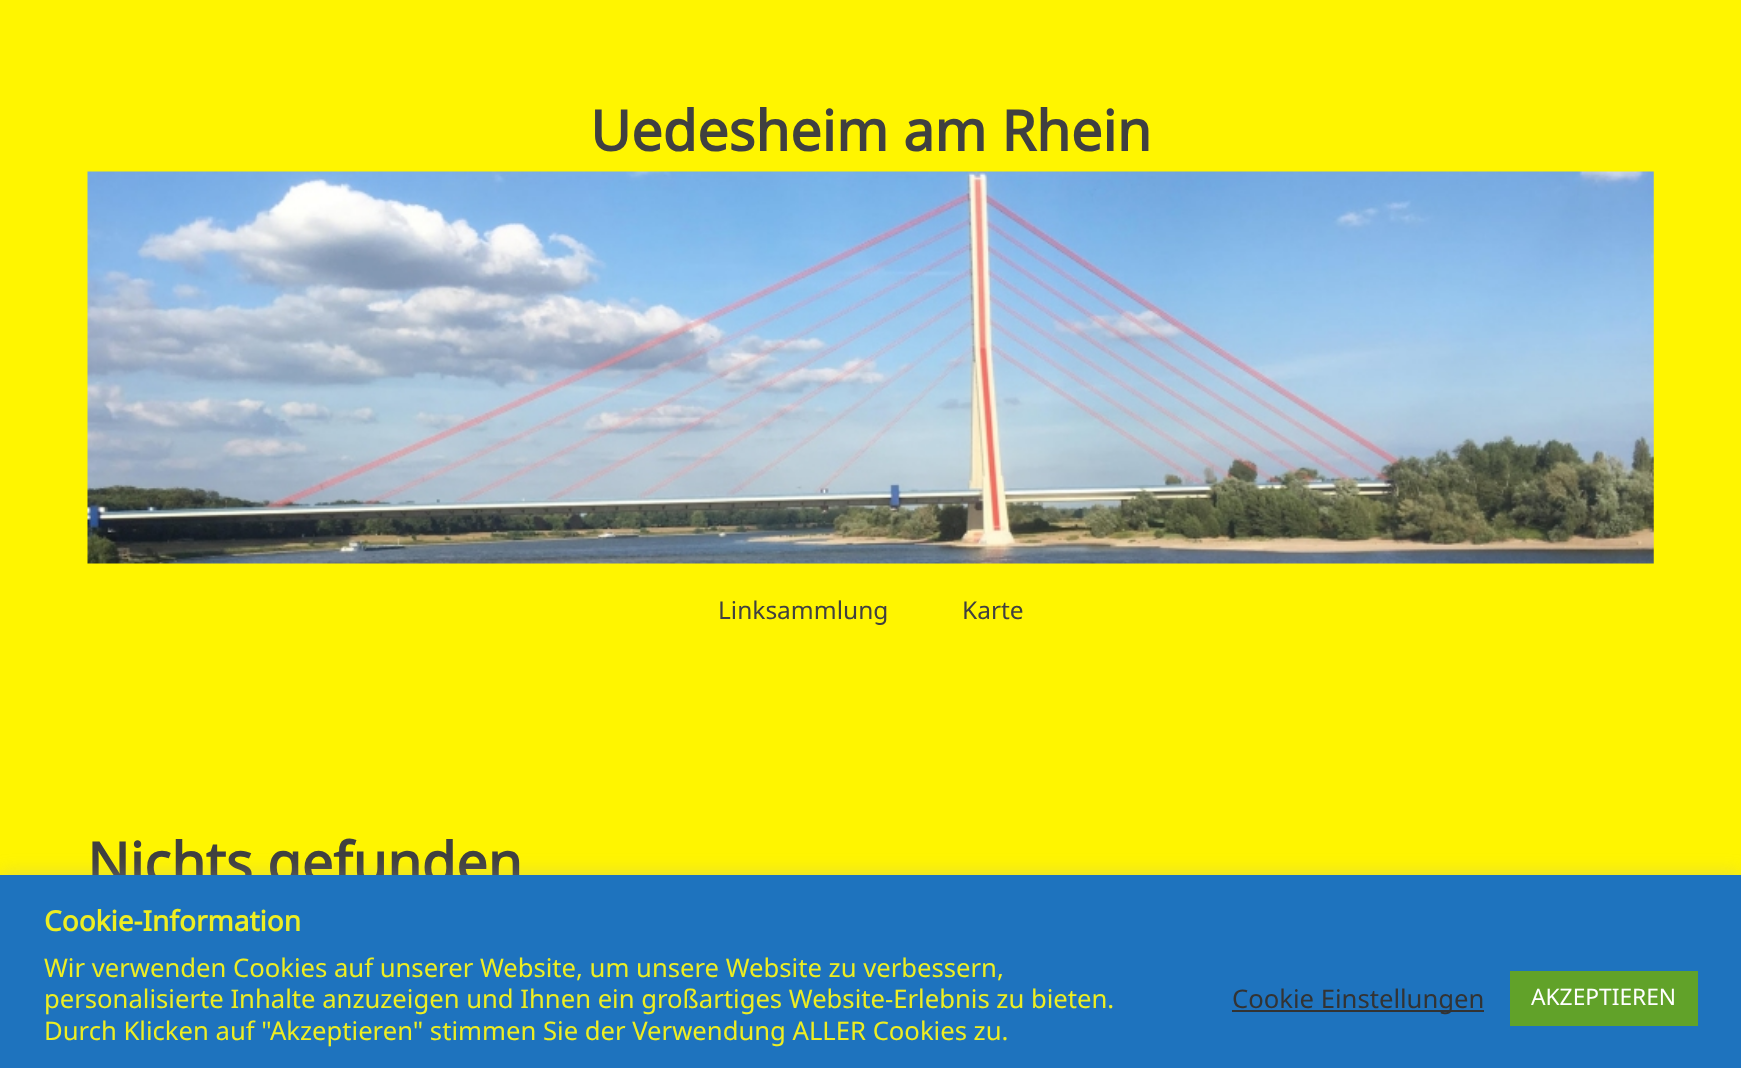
<!DOCTYPE html>
<meta charset="utf-8">
<style>body { margin: 0 } canvas { display: block }</style>
<canvas id="canvas" width="1741" height="1068"></canvas>
<script type="module">
  const canvas = document.getElementById("canvas");
  const ctx = canvas.getContext("2d");
  ctx.miterLimit = 4;
  ctx.fontKerning = "normal";
  async function loadImage(src) {
    const img = new Image();
    img.src = src;
    await img.decode();
    return img;
  }

  ctx.fillStyle = "#fff500";
  ctx.fillRect(0, 0, 1741, 1068);
  ctx.font = "bold 56px Noto Sans";
  ctx.fillStyle = "#404040";
  ctx.fillText("Uedesheim am Rhein", 590, 151);
  ctx.drawImage(await loadImage("img1.png"), 87, 171, 1567, 393);
  ctx.font = "24.5px Noto Sans";
  ctx.fillText("Linksammlung", 718, 619);
  ctx.fillText("Karte", 962, 619);
  ctx.font = "bold 56px Noto Sans";
  ctx.fillText("Nichts gefunden", 87, 883);
  ctx.fillStyle = "rgba(172, 171, 171, 0.3)";
  ctx.filter = "blur(9px)";
  ctx.beginPath();
  ctx.rect(0, 873, 1741, 195);
  ctx.fill();
  ctx.filter = "none";
  ctx.fillStyle = "#1e73be";
  ctx.fillRect(0, 875, 1741, 193);
  ctx.font = "bold 28px Noto Sans";
  ctx.fillStyle = "#eeee22";
  ctx.fillText("Cookie-Information", 44, 931);
  ctx.font = "25.65px Noto Sans";
  ctx.fillText("Wir verwenden Cookies auf unserer Website, um unsere Website zu verbessern,", 44, 977);
  ctx.fillText("personalisierte Inhalte anzuzeigen und Ihnen ein großartiges Website-Erlebnis zu bieten.", 44, 1008);
  ctx.fillText("Durch Klicken auf \"Akzeptieren\" stimmen Sie der Verwendung ALLER Cookies zu.", 44, 1040);
  ctx.fillStyle = "#333333";
  ctx.fillRect(1232, 1010, 252, 2);
  ctx.fillText("Cookie Einstellungen", 1232, 1008);
  ctx.fillStyle = "#61a229";
  ctx.fillRect(1510, 971, 188, 55);
  ctx.font = "22.75px Noto Sans";
  ctx.fillStyle = "#ffffff";
  ctx.fillText("AKZEPTIEREN", 1531, 1005);
</script>
